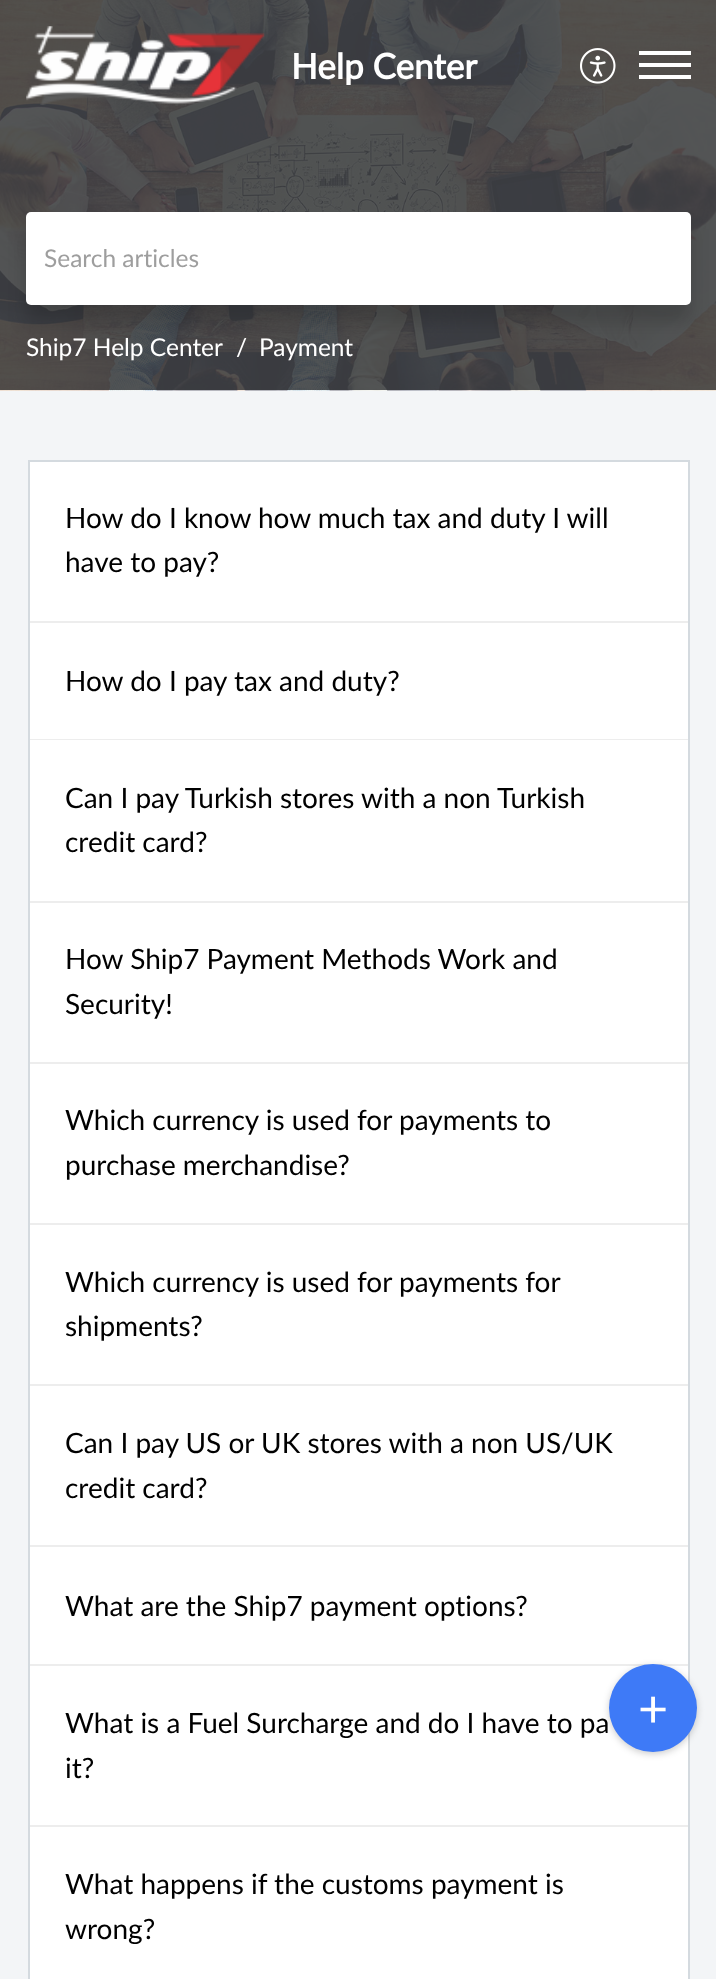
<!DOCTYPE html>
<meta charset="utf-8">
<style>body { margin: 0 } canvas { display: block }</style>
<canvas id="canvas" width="716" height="1979"></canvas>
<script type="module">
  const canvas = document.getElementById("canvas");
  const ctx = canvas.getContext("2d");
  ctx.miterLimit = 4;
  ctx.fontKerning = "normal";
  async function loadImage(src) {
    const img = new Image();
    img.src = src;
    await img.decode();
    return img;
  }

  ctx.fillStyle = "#f3f5f7";
  ctx.fillRect(0, 0, 716, 1979);
  ctx.drawImage(await loadImage("img1.png"), 0, 0, 716, 391);
  ctx.drawImage(await loadImage("img2.png"), 26, 26, 239, 79);
  ctx.font = "bold 35px Lato";
  ctx.fillStyle = "#ffffff";
  ctx.fillText("Help Center", 291, 79);
  ctx.drawImage(await loadImage("img3.png"), 580, 48, 36, 36);
  ctx.fillRect(639, 63, 52, 4);
  ctx.fillRect(639, 51, 52, 4);
  ctx.fillRect(639, 75, 52, 4);
  ctx.fillStyle = "rgba(0, 0, 0, 0.16)";
  ctx.filter = "blur(9px)";
  ctx.beginPath();
  ctx.rect(26, 229, 665, 93);
  ctx.fill();
  ctx.filter = "none";
  ctx.fillStyle = "#ffffff";
  ctx.beginPath();
  ctx.roundRect(26, 212, 665, 93, 5);
  ctx.fill();
  ctx.font = "24.5px Lato";
  ctx.fillStyle = "#9e9e9e";
  ctx.fillText("Search articles", 44, 267);
  ctx.fillStyle = "#ffffff";
  ctx.beginPath();
  ctx.rect(29, 461, 660, 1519);
  ctx.fill();
  ctx.strokeStyle = "#d4dadf";
  ctx.lineWidth = 2;
  ctx.stroke();
  ctx.fillStyle = "#ededed";
  ctx.fillRect(30, 1664, 658, 2);
  ctx.fillStyle = "rgba(0, 0, 0, 0.2)";
  ctx.filter = "blur(3.5px)";
  ctx.beginPath();
  ctx.roundRect(609, 1666, 88, 88, 44);
  ctx.fill();
  ctx.filter = "none";
  ctx.fillStyle = "#3e7af7";
  ctx.beginPath();
  ctx.arc(653, 1708, 44, 0, Math.PI * 2);
  ctx.fill();
  ctx.font = "52px Lato";
  ctx.fillStyle = "#ffffff";
  ctx.fillText("+", 638, 1727);
  ctx.font = "24.5px Lato";
  ctx.fillText("Ship7 Help Center", 26, 356);
  ctx.fillText("/", 236, 356);
  ctx.fillText("Payment", 259, 356);
  ctx.fillStyle = "#ededed";
  ctx.fillRect(30, 621, 658, 2);
  ctx.font = "28px Lato";
  ctx.fillStyle = "#000000";
  ctx.fillText("How do I know how much tax and duty I will", 65, 528);
  ctx.fillText("have to pay?", 65, 572);
  ctx.fillStyle = "#ededed";
  ctx.fillRect(30, 739, 658, 1);
  ctx.fillStyle = "#000000";
  ctx.fillText("How do I pay tax and duty?", 65, 691);
  ctx.fillStyle = "#ededed";
  ctx.fillRect(30, 901, 658, 2);
  ctx.fillStyle = "#000000";
  ctx.fillText("Can I pay Turkish stores with a non Turkish", 65, 808);
  ctx.fillText("credit card?", 65, 852);
  ctx.fillStyle = "#ededed";
  ctx.fillRect(30, 1062, 658, 2);
  ctx.fillStyle = "#000000";
  ctx.fillText("How Ship7 Payment Methods Work and", 65, 969);
  ctx.fillText("Security!", 65, 1014);
  ctx.fillStyle = "#ededed";
  ctx.fillRect(30, 1223, 658, 2);
  ctx.fillStyle = "#000000";
  ctx.fillText("Which currency is used for payments to", 65, 1130);
  ctx.fillText("purchase merchandise?", 65, 1175);
  ctx.fillStyle = "#ededed";
  ctx.fillRect(30, 1384, 658, 2);
  ctx.fillStyle = "#000000";
  ctx.fillText("Which currency is used for payments for", 65, 1292);
  ctx.fillText("shipments?", 65, 1336);
  ctx.fillStyle = "#ededed";
  ctx.fillRect(30, 1545, 658, 2);
  ctx.fillStyle = "#000000";
  ctx.fillText("Can I pay US or UK stores with a non US/UK", 65, 1453);
  ctx.fillText("credit card?", 65, 1498);
  ctx.fillText("What are the Ship7 payment options?", 65, 1616);
  ctx.fillStyle = "#ededed";
  ctx.fillRect(30, 1825, 658, 2);
  ctx.fillStyle = "#000000";
  ctx.fillText("What is a Fuel Surcharge and do I have to pa", 65, 1733);
  ctx.fillText("it?", 65, 1778);
  ctx.fillText("What happens if the customs payment is", 65, 1894);
  ctx.fillText("wrong?", 65, 1939);
</script>
